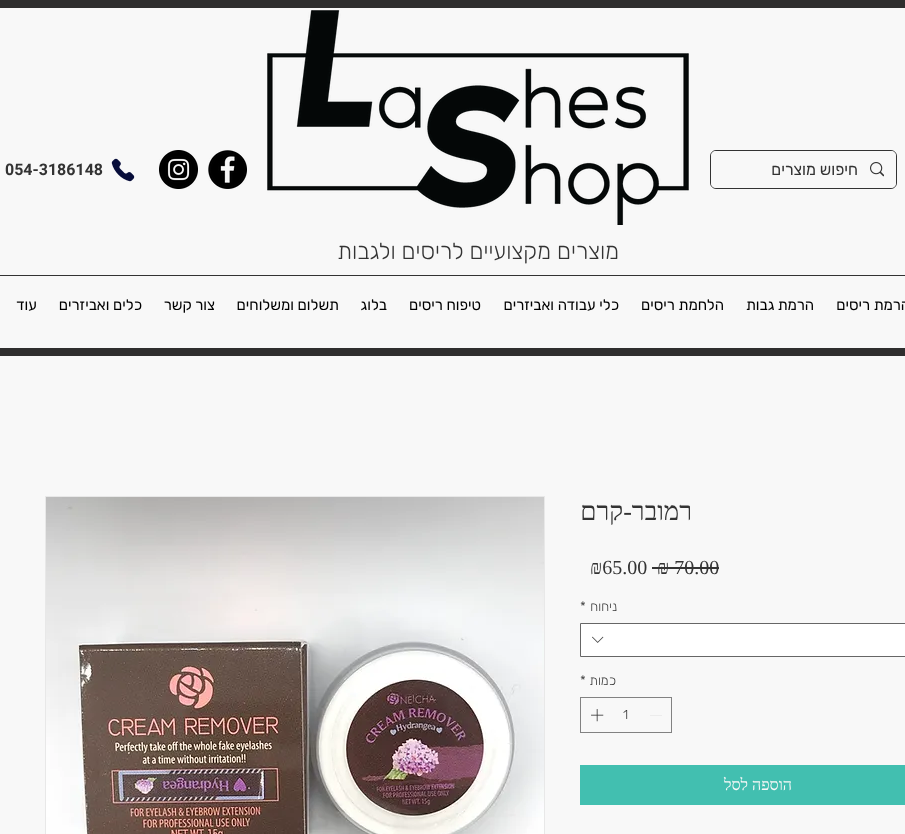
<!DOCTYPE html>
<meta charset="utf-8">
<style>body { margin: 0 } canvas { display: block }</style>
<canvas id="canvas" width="905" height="834"></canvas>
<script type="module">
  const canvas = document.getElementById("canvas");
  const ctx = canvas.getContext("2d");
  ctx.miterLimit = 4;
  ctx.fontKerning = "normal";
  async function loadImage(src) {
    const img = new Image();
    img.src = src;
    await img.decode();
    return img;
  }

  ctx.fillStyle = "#f8f8f8";
  ctx.fillRect(0, 0, 905, 834);
  ctx.fillStyle = "#2f2e2e";
  ctx.fillRect(0, 0, 905, 8);
  ctx.fillRect(0, 348, 905, 8);
  ctx.beginPath();
  ctx.roundRect(710.5, 150.5, 186, 38, 5.5);
  ctx.strokeStyle = "#333333";
  ctx.stroke();
  ctx.fillStyle = "#f8f8f8";
  ctx.beginPath();
  ctx.roundRect(711, 151, 185, 37, 5);
  ctx.fill();
  ctx.drawImage(await loadImage("img1.png"), 870, 162, 14, 15);
  ctx.direction = "rtl";
  ctx.font = "16px Rubik";
  ctx.fillStyle = "#333333";
  ctx.fillText("חיפוש מוצרים", 858, 175);
  ctx.drawImage(await loadImage("img2.png"), 267, 10, 422, 215);
  ctx.drawImage(await loadImage("img3.png"), 208, 150, 39, 39);
  ctx.drawImage(await loadImage("img4.png"), 159, 150, 39, 39);
  ctx.drawImage(await loadImage("img5.png"), 111, 158, 24, 24);
  ctx.direction = "ltr";
  ctx.font = "bold 16px Roboto";
  ctx.fillText("054-3186148", 5, 175);
  ctx.direction = "rtl";
  ctx.font = "300 23px Rubik";
  ctx.fillText("מוצרים מקצועיים לריסים ולגבות", 619, 259);
  ctx.fillRect(0, 275, 905, 1);
  ctx.font = "15px Rubik";
  ctx.fillStyle = "#000000";
  ctx.fillText("הרמת ריסים", 910, 310);
  ctx.fillText("הרמת גבות", 814, 310);
  ctx.fillText("הלחמת ריסים", 724, 310);
  ctx.fillText("כלי עבודה ואביזרים", 619, 310);
  ctx.fillText("טיפוח ריסים", 481, 310);
  ctx.fillText("בלוג", 387, 310);
  ctx.fillText("תשלום ומשלוחים", 339, 310);
  ctx.fillText("צור קשר", 215, 310);
  ctx.fillText("כלים ואביזרים", 142, 310);
  ctx.fillText("עוד", 37, 310);
  ctx.font = "26px Liberation Serif";
  ctx.fillStyle = "#333333";
  ctx.fillText("רמובר-קרם", 692, 520);
  ctx.direction = "ltr";
  ctx.font = "20px Liberation Serif";
  ctx.fillText("₪ 70.00", 657, 574);
  ctx.fillRect(652, 567, 67, 2);
  ctx.fillText("₪65.00", 590, 574);
  ctx.direction = "rtl";
  ctx.font = "300 13px Rubik";
  ctx.fillText("ניחוח", 617, 611);
  ctx.direction = "ltr";
  ctx.fillText("*", 580, 611);
  ctx.fillStyle = "#ffffff";
  ctx.beginPath();
  ctx.rect(580.5, 623.5, 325, 33);
  ctx.fill();
  ctx.strokeStyle = "#666666";
  ctx.stroke();
  ctx.drawImage(await loadImage("img6.png"), 592, 636, 12, 7);
  ctx.direction = "rtl";
  ctx.fillStyle = "#333333";
  ctx.fillText("כמות", 616, 685);
  ctx.direction = "ltr";
  ctx.fillText("*", 580, 685);
  ctx.strokeStyle = "#828282";
  ctx.strokeRect(580.5, 697.5, 91, 35);
  ctx.fillStyle = "#e0e0e0";
  ctx.beginPath();
  ctx.moveTo(662, 715);
  ctx.lineTo(662, 715.5);
  ctx.lineTo(650, 715.5);
  ctx.lineTo(650, 715);
  ctx.closePath();
  ctx.fill("evenodd");
  ctx.fillStyle = "#333333";
  ctx.fillText("1", 623, 719);
  ctx.drawImage(await loadImage("img7.png"), 591, 709, 13, 13);
  ctx.fillStyle = "#42bfb0";
  ctx.fillRect(580, 765, 325, 40);
  ctx.direction = "rtl";
  ctx.font = "16px Liberation Serif";
  ctx.fillStyle = "#f8f8f8";
  ctx.fillText("הוספה לסל", 792, 790);
  ctx.strokeStyle = "#e8e8e8";
  ctx.strokeRect(45.5, 496.5, 499, 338);
  ctx.drawImage(await loadImage("img8.png"), 46, 497, 498, 337);
</script>
